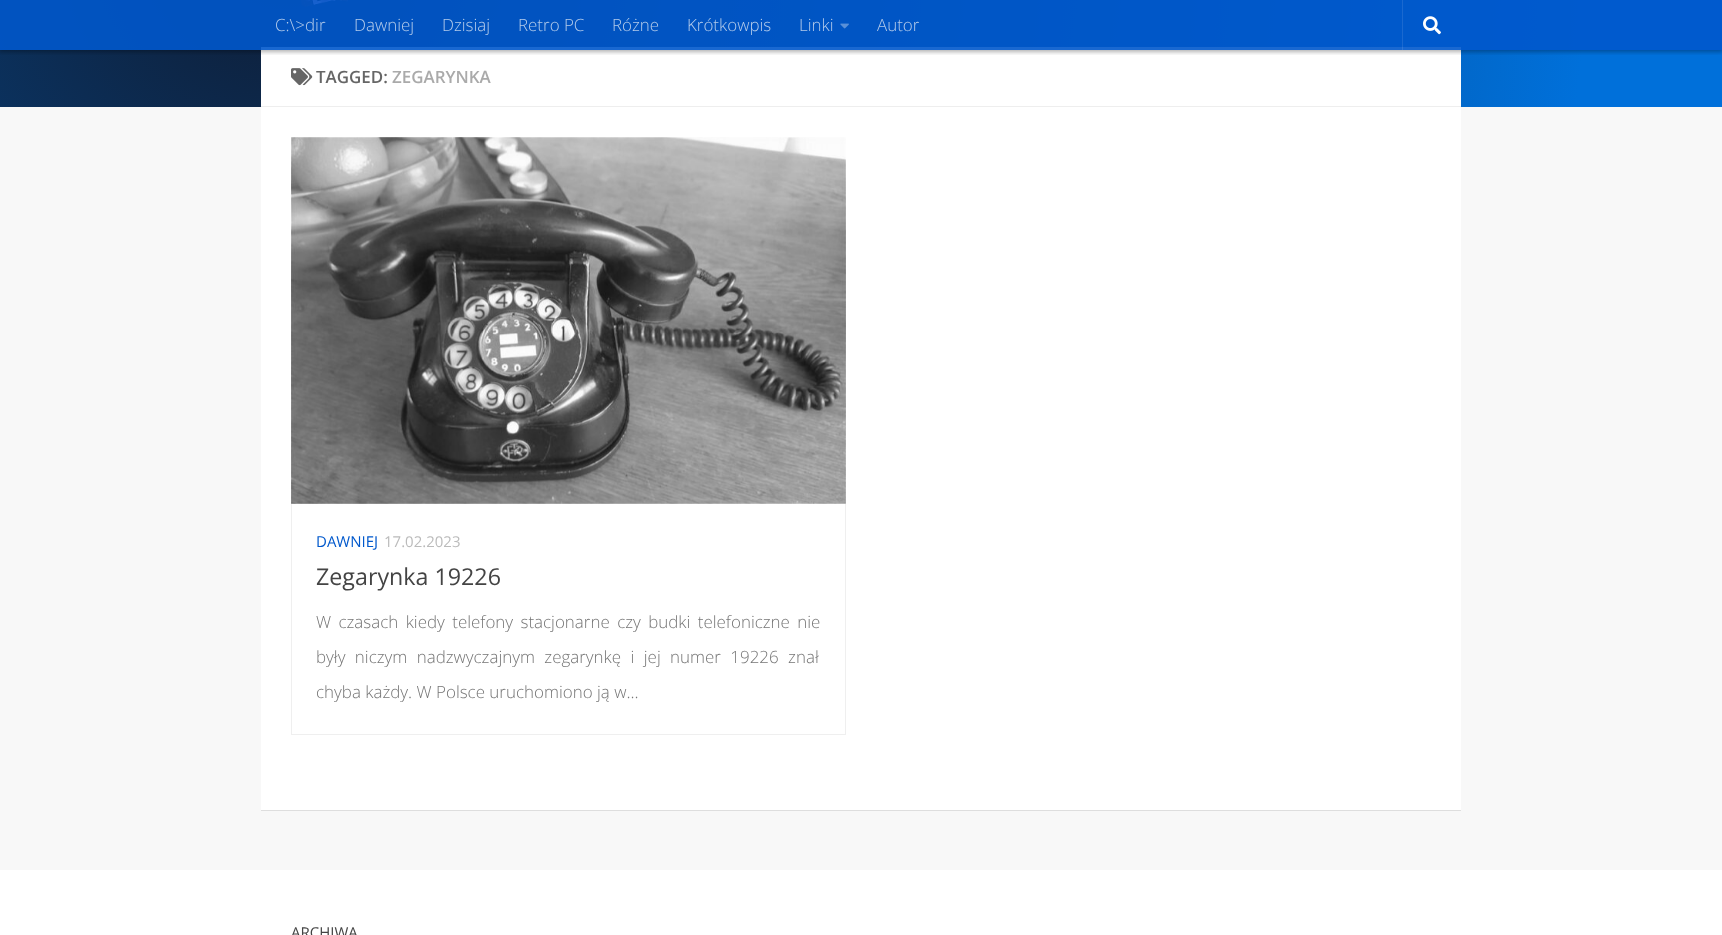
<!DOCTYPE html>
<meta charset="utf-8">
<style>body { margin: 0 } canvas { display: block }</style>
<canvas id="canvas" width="1722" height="935"></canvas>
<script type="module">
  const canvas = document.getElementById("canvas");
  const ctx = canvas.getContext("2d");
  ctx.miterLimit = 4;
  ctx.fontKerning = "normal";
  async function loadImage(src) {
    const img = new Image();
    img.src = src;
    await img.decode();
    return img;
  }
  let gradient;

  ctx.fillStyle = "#f8f8f8";
  ctx.fillRect(0, 0, 1722, 935);
  ctx.fillStyle = "rgba(0, 0, 0, 0.1)";
  ctx.filter = "blur(0.5px)";
  ctx.beginPath();
  ctx.rect(261, 48, 1200, 763);
  ctx.fill();
  ctx.filter = "none";
  gradient = ctx.createRadialGradient(284, -74, 0, 284, -74, 1449);
  gradient.addColorStop(0, "#0f1b31");
  gradient.addColorStop(0.9, "#0070da");
  ctx.fillStyle = gradient;
  ctx.fillRect(0, 0, 1722, 107);
  ctx.drawImage(await loadImage("img1.png"), 301, 0, 47, 7);
  ctx.fillStyle = "#ffffff";
  ctx.fillRect(261, 47, 1200, 763);
  ctx.save();
  ctx.beginPath();
  ctx.rect(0, 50, 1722, 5);
  ctx.clip();
  ctx.fillStyle = "rgba(0, 0, 0, 0.3)";
  ctx.filter = "blur(2px)";
  ctx.beginPath();
  ctx.rect(-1, 0, 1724, 52);
  ctx.fill();
  ctx.filter = "none";
  ctx.restore();
  ctx.fillStyle = "rgba(0, 88, 204, 0.9)";
  ctx.fillRect(0, 0, 1722, 50);
  ctx.font = "300 16.95px Open Sans";
  ctx.fillStyle = "#b3cbeb";
  ctx.fillText("C:\\>dir", 275, 31);
  ctx.fillText("Dawniej", 354, 31);
  ctx.fillText("Dzisiaj", 442, 31);
  ctx.fillText("Retro PC", 518, 31);
  ctx.fillText("Różne", 612, 31);
  ctx.fillText("Krótkowpis", 687, 31);
  ctx.fillText("Linki", 799, 31);
  ctx.drawImage(await loadImage("img2.png"), 840, 23, 9, 6);
  ctx.fillText("Autor", 877, 31);
  ctx.fillStyle = "rgba(255, 255, 255, 0.1)";
  ctx.fillRect(1402, 0, 1, 50);
  ctx.drawImage(await loadImage("img3.png"), 1423, 16, 18, 19);
  ctx.fillStyle = "#eeeeee";
  ctx.fillRect(261, 106, 1200, 1);
  ctx.drawImage(await loadImage("img4.png"), 291, 68, 22, 18);
  ctx.font = "600 16.95px Open Sans";
  ctx.fillStyle = "#666666";
  ctx.fillText("TAGGED:", 316, 83);
  ctx.fillStyle = "#aaaaaa";
  ctx.fillText("ZEGARYNKA", 392, 83);
  ctx.strokeStyle = "#efefef";
  ctx.strokeRect(291.5, 137.5, 554, 597);
  ctx.drawImage(await loadImage("img5.png"), 291, 137, 555, 367);
  ctx.font = "15px Open Sans";
  ctx.fillStyle = "#0058cc";
  ctx.fillText("DAWNIEJ", 316, 547);
  ctx.fillStyle = "#bbbbbb";
  ctx.fillText("17.02.2023", 384, 547);
  ctx.font = "23.25px Open Sans";
  ctx.fillStyle = "#444444";
  ctx.fillText("Zegarynka 19226", 316, 585);
  ctx.wordSpacing = "3px";
  ctx.font = "300 16.95px Open Sans";
  ctx.fillStyle = "#767676";
  ctx.fillText("W czasach kiedy telefony stacjonarne czy budki telefoniczne nie", 316, 628);
  ctx.wordSpacing = "5px";
  ctx.fillText("były niczym nadzwyczajnym zegarynkę i jej numer 19226 znał", 316, 663);
  ctx.wordSpacing = "0px";
  ctx.fillText("chyba każdy. W Polsce uruchomiono ją w...", 316, 698);
  ctx.fillStyle = "#ffffff";
  ctx.fillRect(0, 870, 1722, 65);
  ctx.font = "15px Open Sans";
  ctx.fillStyle = "#444444";
  ctx.fillText("ARCHIWA", 291, 938);
</script>
